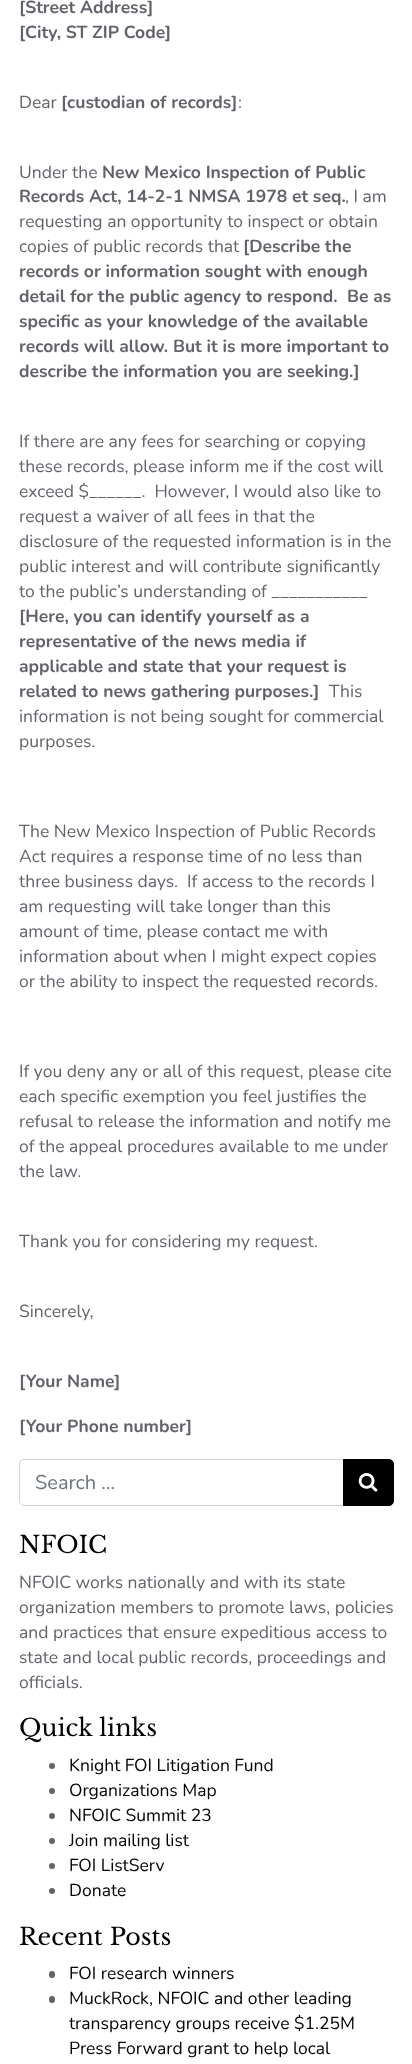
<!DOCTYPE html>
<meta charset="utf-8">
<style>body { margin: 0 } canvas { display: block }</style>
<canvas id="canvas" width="412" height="2064"></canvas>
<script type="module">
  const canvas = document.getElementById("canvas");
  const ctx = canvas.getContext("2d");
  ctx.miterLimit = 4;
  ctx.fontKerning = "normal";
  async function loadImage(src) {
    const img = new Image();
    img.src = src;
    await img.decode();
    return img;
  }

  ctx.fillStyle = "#ffffff";
  ctx.fillRect(0, 0, 412, 2064);
  ctx.font = "bold 17.5px Nunito";
  ctx.fillStyle = "#63626a";
  ctx.fillText("[Street Address]", 19, 13);
  ctx.fillText("[City, ST ZIP Code]", 19, 38);
  ctx.font = "17.5px Nunito";
  ctx.fillText("Dear", 19, 108);
  ctx.font = "bold 17.5px Nunito";
  ctx.fillText("[custodian of records]", 61, 108);
  ctx.font = "17.5px Nunito";
  ctx.fillText(":", 238, 108);
  ctx.fillText("Under the", 19, 178);
  ctx.font = "bold 17.5px Nunito";
  ctx.fillText("New Mexico Inspection of Public", 102, 178);
  ctx.fillText("Records Act, 14-2-1 NMSA 1978 et seq.", 19, 202);
  ctx.font = "17.5px Nunito";
  ctx.fillText(", I am", 345, 202);
  ctx.fillText("requesting an opportunity to inspect or obtain", 19, 227);
  ctx.fillText("copies of public records that", 19, 252);
  ctx.font = "bold 17.5px Nunito";
  ctx.fillText("[Describe the", 243, 252);
  ctx.fillText("records or information sought with enough", 19, 277);
  ctx.fillText("detail for the public agency to respond.  Be as", 19, 302);
  ctx.fillText("specific as your knowledge of the available", 19, 327);
  ctx.fillText("records will allow. But it is more important to", 19, 352);
  ctx.fillText("describe the information you are seeking.]", 19, 377);
  ctx.font = "17.5px Nunito";
  ctx.fillText("If there are any fees for searching or copying", 19, 447);
  ctx.fillText("these records, please inform me if the cost will", 19, 472);
  ctx.fillText("exceed $______.  However, I would also like to", 19, 497);
  ctx.fillText("request a waiver of all fees in that the", 19, 522);
  ctx.fillText("disclosure of the requested information is in the", 19, 547);
  ctx.fillText("public interest and will contribute significantly", 19, 572);
  ctx.fillText("to the public’s understanding of ___________", 19, 597);
  ctx.font = "bold 17.5px Nunito";
  ctx.fillText("[Here, you can identify yourself as a", 19, 622);
  ctx.fillText("representative of the news media if", 19, 647);
  ctx.fillText("applicable and state that your request is", 19, 672);
  ctx.fillText("related to news gathering purposes.]", 19, 697);
  ctx.font = "17.5px Nunito";
  ctx.fillText("This", 329, 697);
  ctx.fillText("information is not being sought for commercial", 19, 722);
  ctx.fillText("purposes.", 19, 747);
  ctx.fillText("The New Mexico Inspection of Public Records", 19, 837);
  ctx.fillText("Act requires a response time of no less than", 19, 862);
  ctx.fillText("three business days.  If access to the records I", 19, 887);
  ctx.fillText("am requesting will take longer than this", 19, 912);
  ctx.fillText("amount of time, please contact me with", 19, 937);
  ctx.fillText("information about when I might expect copies", 19, 962);
  ctx.fillText("or the ability to inspect the requested records.", 19, 987);
  ctx.fillText("If you deny any or all of this request, please cite", 19, 1077);
  ctx.fillText("each specific exemption you feel justifies the", 19, 1102);
  ctx.fillText("refusal to release the information and notify me", 19, 1127);
  ctx.fillText("of the appeal procedures available to me under", 19, 1152);
  ctx.fillText("the law.", 19, 1177);
  ctx.fillText("Thank you for considering my request.", 19, 1247);
  ctx.fillText("Sincerely,", 19, 1317);
  ctx.font = "bold 17.5px Nunito";
  ctx.fillText("[Your Name]", 19, 1387);
  ctx.fillText("[Your Phone number]", 19, 1432);
  ctx.beginPath();
  ctx.roundRect(19.5, 1459.5, 324, 46, [4.5, 0, 0, 4.5]);
  ctx.strokeStyle = "#ced4da";
  ctx.stroke();
  ctx.font = "20px Nunito";
  ctx.fillStyle = "#6c757d";
  ctx.fillText("Search …", 35, 1489);
  ctx.fillStyle = "#000000";
  ctx.beginPath();
  ctx.roundRect(343.5, 1459.5, 50, 46, [0, 4.5, 4.5, 0]);
  ctx.fill();
  ctx.strokeStyle = "#000000";
  ctx.stroke();
  ctx.drawImage(await loadImage("img1.png"), 358, 1473, 20, 19);
  ctx.font = "23.75px Libre Baskerville";
  ctx.fillText("NFOIC", 19, 1553);
  ctx.font = "17.5px Nunito";
  ctx.fillStyle = "#63626a";
  ctx.fillText("NFOIC works nationally and with its state", 19, 1588);
  ctx.fillText("organization members to promote laws, policies", 19, 1613);
  ctx.fillText("and practices that ensure expeditious access to", 19, 1638);
  ctx.fillText("state and local public records, proceedings and", 19, 1663);
  ctx.fillText("officials.", 19, 1688);
  ctx.font = "23.75px Libre Baskerville";
  ctx.fillStyle = "#000000";
  ctx.fillText("Quick links", 19, 1736);
  ctx.fillStyle = "#63626a";
  ctx.beginPath();
  ctx.arc(52, 1766, 3, 0, Math.PI * 2);
  ctx.fill();
  ctx.font = "17.5px Nunito";
  ctx.fillStyle = "#000000";
  ctx.fillText("Knight FOI Litigation Fund", 69, 1771);
  ctx.fillStyle = "#63626a";
  ctx.beginPath();
  ctx.arc(52, 1791, 3, 0, Math.PI * 2);
  ctx.fill();
  ctx.fillStyle = "#000000";
  ctx.fillText("Organizations Map", 69, 1796);
  ctx.fillStyle = "#63626a";
  ctx.beginPath();
  ctx.arc(52, 1816, 3, 0, Math.PI * 2);
  ctx.fill();
  ctx.fillStyle = "#000000";
  ctx.fillText("NFOIC Summit 23", 69, 1821);
  ctx.fillStyle = "#63626a";
  ctx.beginPath();
  ctx.arc(52, 1841, 3, 0, Math.PI * 2);
  ctx.fill();
  ctx.fillStyle = "#000000";
  ctx.fillText("Join mailing list", 69, 1846);
  ctx.fillStyle = "#63626a";
  ctx.beginPath();
  ctx.arc(52, 1866, 3, 0, Math.PI * 2);
  ctx.fill();
  ctx.fillStyle = "#000000";
  ctx.fillText("FOI ListServ", 69, 1871);
  ctx.fillStyle = "#63626a";
  ctx.beginPath();
  ctx.arc(52, 1891, 3, 0, Math.PI * 2);
  ctx.fill();
  ctx.fillStyle = "#000000";
  ctx.fillText("Donate", 69, 1896);
  ctx.font = "23.75px Libre Baskerville";
  ctx.fillText("Recent Posts", 19, 1945);
  ctx.fillStyle = "#63626a";
  ctx.beginPath();
  ctx.roundRect(49, 1971, 6, 7, 3);
  ctx.fill();
  ctx.font = "17.5px Nunito";
  ctx.fillStyle = "#000000";
  ctx.fillText("FOI research winners", 69, 1979);
  ctx.fillStyle = "#63626a";
  ctx.beginPath();
  ctx.roundRect(49, 1996, 6, 7, 3);
  ctx.fill();
  ctx.fillStyle = "#000000";
  ctx.fillText("MuckRock, NFOIC and other leading", 69, 2004);
  ctx.fillText("transparency groups receive $1.25M", 69, 2029);
  ctx.fillText("Press Forward grant to help local", 69, 2054);
</script>
